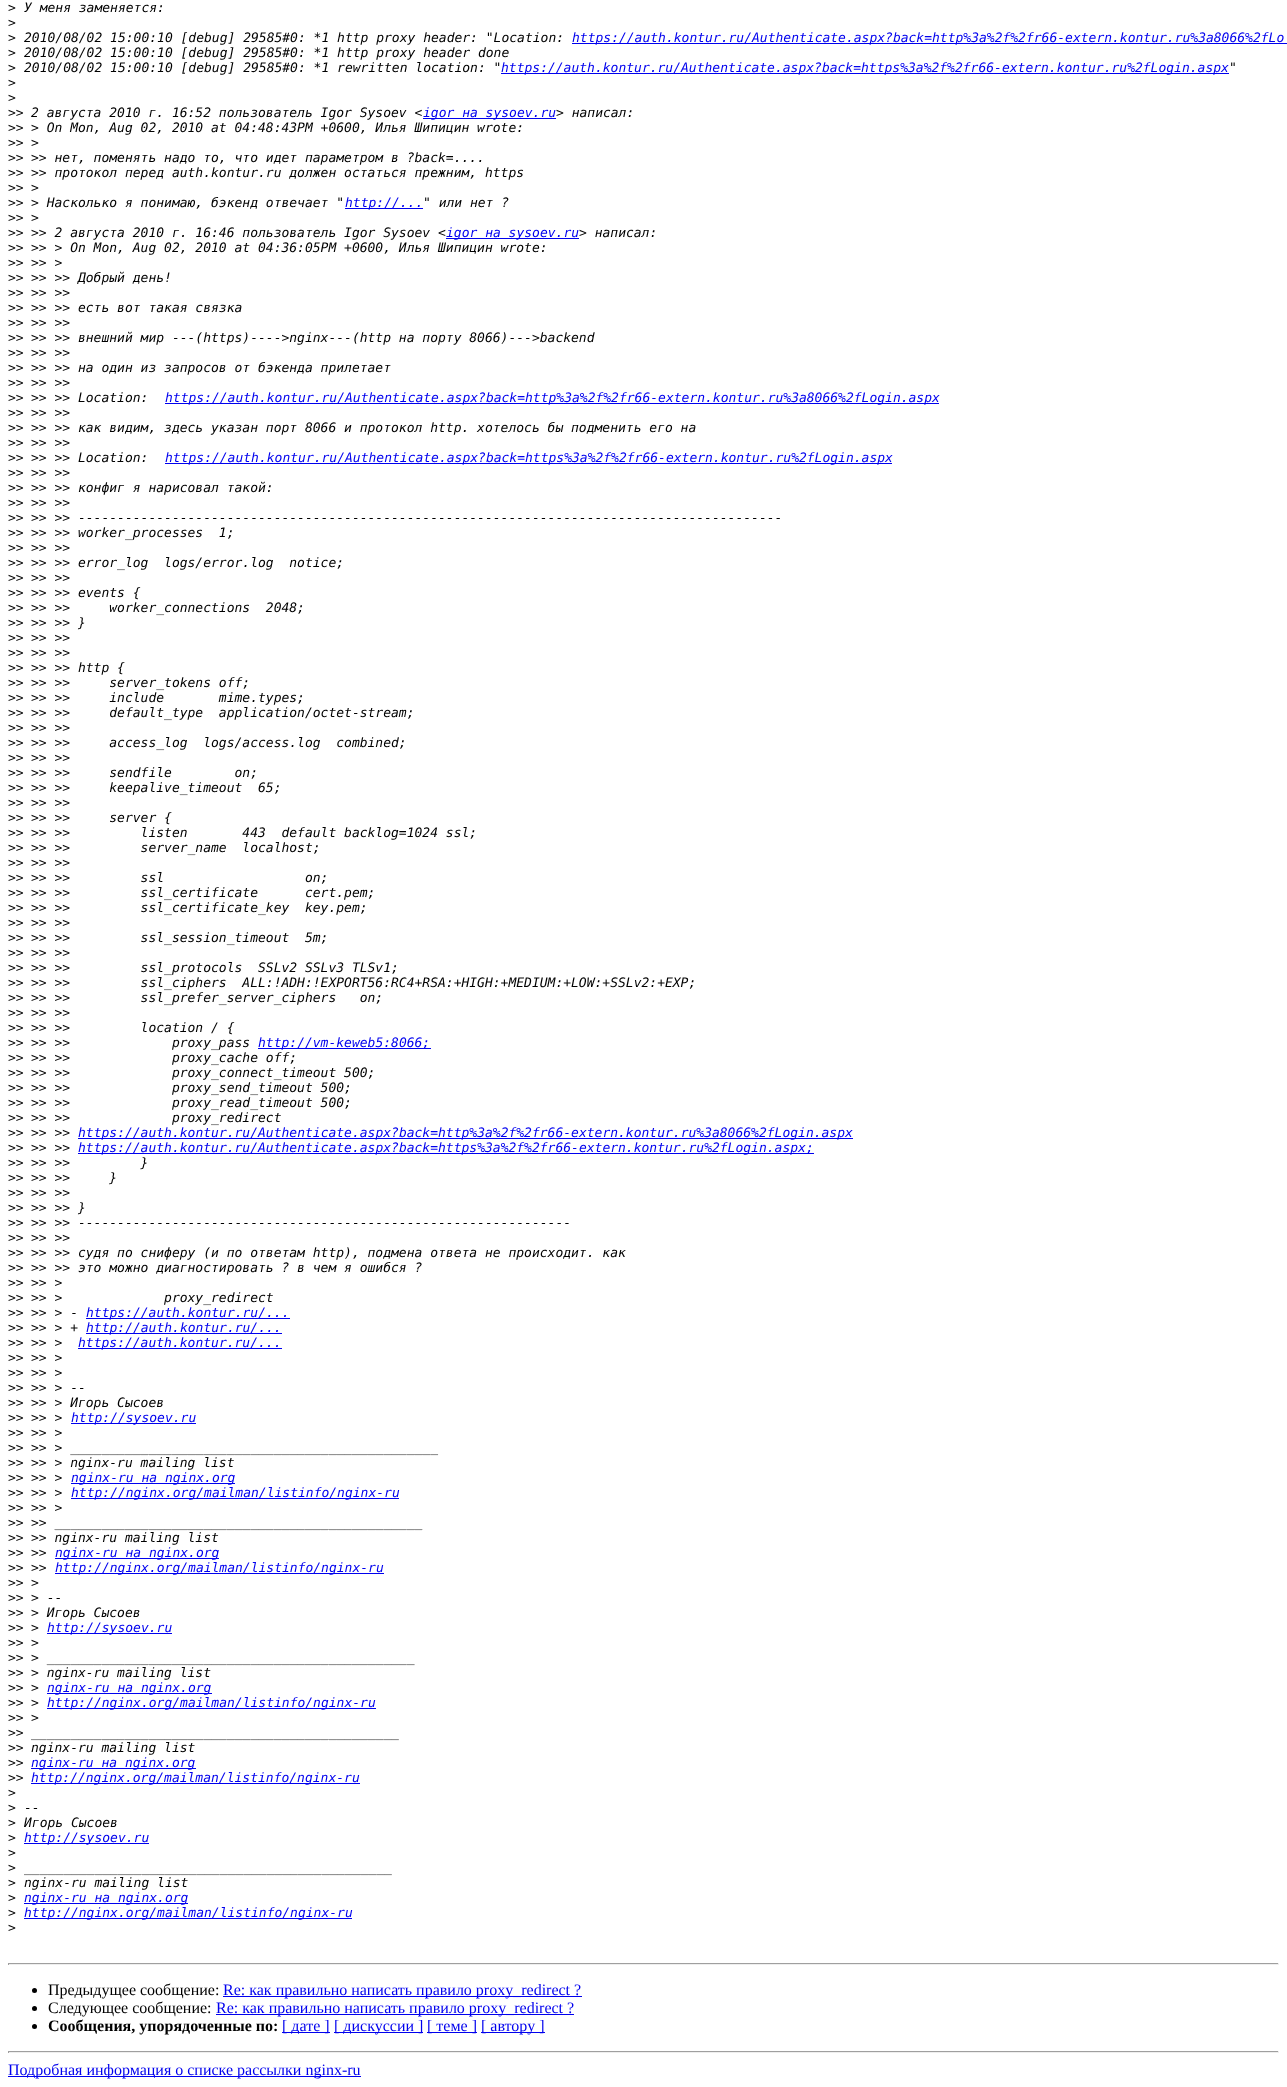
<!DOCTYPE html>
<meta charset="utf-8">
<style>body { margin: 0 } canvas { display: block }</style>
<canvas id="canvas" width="1287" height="2087"></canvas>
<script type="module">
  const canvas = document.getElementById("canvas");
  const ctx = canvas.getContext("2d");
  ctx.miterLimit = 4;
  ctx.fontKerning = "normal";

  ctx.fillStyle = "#ffffff";
  ctx.fillRect(0, 0, 1287, 2087);
  ctx.font = "13px DejaVu Sans Mono";
  ctx.fillStyle = "#000000";
  ctx.fillText(">", 8, 12);
  ctx.font = "italic 13px DejaVu Sans Mono";
  ctx.fillText("У меня заменяется:", 24, 12);
  ctx.font = "13px DejaVu Sans Mono";
  ctx.fillText(">", 8, 27);
  ctx.fillText(">", 8, 42);
  ctx.font = "italic 13px DejaVu Sans Mono";
  ctx.fillText("2010/08/02 15:00:10 [debug] 29585#0: *1 http proxy header: \"Location:", 24, 42);
  ctx.fillStyle = "#0000ee";
  ctx.fillRect(572, 43, 715, 1);
  ctx.fillText("https://auth.kontur.ru/Authenticate.aspx?back=http%3a%2f%2fr66-extern.kontur.ru%3a8066%2fLo", 572, 42);
  ctx.font = "13px DejaVu Sans Mono";
  ctx.fillStyle = "#000000";
  ctx.fillText(">", 8, 57);
  ctx.font = "italic 13px DejaVu Sans Mono";
  ctx.fillText("2010/08/02 15:00:10 [debug] 29585#0: *1 http proxy header done", 24, 57);
  ctx.font = "13px DejaVu Sans Mono";
  ctx.fillText(">", 8, 72);
  ctx.font = "italic 13px DejaVu Sans Mono";
  ctx.fillText("2010/08/02 15:00:10 [debug] 29585#0: *1 rewritten location: \"", 24, 72);
  ctx.fillStyle = "#0000ee";
  ctx.fillRect(501, 73, 728, 1);
  ctx.fillText("https://auth.kontur.ru/Authenticate.aspx?back=https%3a%2f%2fr66-extern.kontur.ru%2fLogin.aspx", 501, 72);
  ctx.fillStyle = "#000000";
  ctx.fillText("\"", 1229, 72);
  ctx.font = "13px DejaVu Sans Mono";
  ctx.fillText(">", 8, 87);
  ctx.fillText(">", 8, 102);
  ctx.fillText(">>", 8, 117);
  ctx.font = "italic 13px DejaVu Sans Mono";
  ctx.fillText("2 августа 2010 г. 16:52 пользователь Igor Sysoev <", 31, 117);
  ctx.fillStyle = "#0000ee";
  ctx.fillRect(423, 118, 133, 1);
  ctx.fillText("igor на sysoev.ru", 423, 117);
  ctx.fillStyle = "#000000";
  ctx.fillText("> написал:", 556, 117);
  ctx.font = "13px DejaVu Sans Mono";
  ctx.fillText(">>", 8, 132);
  ctx.font = "italic 13px DejaVu Sans Mono";
  ctx.fillText("> On Mon, Aug 02, 2010 at 04:48:43PM +0600, Илья Шипицин wrote:", 31, 132);
  ctx.font = "13px DejaVu Sans Mono";
  ctx.fillText(">>", 8, 147);
  ctx.font = "italic 13px DejaVu Sans Mono";
  ctx.fillText(">", 31, 147);
  ctx.font = "13px DejaVu Sans Mono";
  ctx.fillText(">>", 8, 162);
  ctx.font = "italic 13px DejaVu Sans Mono";
  ctx.fillText(">> нет, поменять надо то, что идет параметром в ?back=....", 31, 162);
  ctx.font = "13px DejaVu Sans Mono";
  ctx.fillText(">>", 8, 177);
  ctx.font = "italic 13px DejaVu Sans Mono";
  ctx.fillText(">> протокол перед auth.kontur.ru должен остаться прежним, https", 31, 177);
  ctx.font = "13px DejaVu Sans Mono";
  ctx.fillText(">>", 8, 192);
  ctx.font = "italic 13px DejaVu Sans Mono";
  ctx.fillText(">", 31, 192);
  ctx.font = "13px DejaVu Sans Mono";
  ctx.fillText(">>", 8, 207);
  ctx.font = "italic 13px DejaVu Sans Mono";
  ctx.fillText("> Насколько я понимаю, бэкенд отвечает \"", 31, 207);
  ctx.fillStyle = "#0000ee";
  ctx.fillRect(345, 208, 78, 1);
  ctx.fillText("http://...", 345, 207);
  ctx.fillStyle = "#000000";
  ctx.fillText("\" или нет ?", 423, 207);
  ctx.font = "13px DejaVu Sans Mono";
  ctx.fillText(">>", 8, 222);
  ctx.font = "italic 13px DejaVu Sans Mono";
  ctx.fillText(">", 31, 222);
  ctx.font = "13px DejaVu Sans Mono";
  ctx.fillText(">>", 8, 237);
  ctx.font = "italic 13px DejaVu Sans Mono";
  ctx.fillText(">> 2 августа 2010 г. 16:46 пользователь Igor Sysoev <", 31, 237);
  ctx.fillStyle = "#0000ee";
  ctx.fillRect(446, 238, 133, 1);
  ctx.fillText("igor на sysoev.ru", 446, 237);
  ctx.fillStyle = "#000000";
  ctx.fillText("> написал:", 579, 237);
  ctx.font = "13px DejaVu Sans Mono";
  ctx.fillText(">>", 8, 252);
  ctx.font = "italic 13px DejaVu Sans Mono";
  ctx.fillText(">> > On Mon, Aug 02, 2010 at 04:36:05PM +0600, Илья Шипицин wrote:", 31, 252);
  ctx.font = "13px DejaVu Sans Mono";
  ctx.fillText(">>", 8, 267);
  ctx.font = "italic 13px DejaVu Sans Mono";
  ctx.fillText(">> >", 31, 267);
  ctx.font = "13px DejaVu Sans Mono";
  ctx.fillText(">>", 8, 282);
  ctx.font = "italic 13px DejaVu Sans Mono";
  ctx.fillText(">> >> Добрый день!", 31, 282);
  ctx.font = "13px DejaVu Sans Mono";
  ctx.fillText(">>", 8, 297);
  ctx.font = "italic 13px DejaVu Sans Mono";
  ctx.fillText(">> >>", 31, 297);
  ctx.font = "13px DejaVu Sans Mono";
  ctx.fillText(">>", 8, 312);
  ctx.font = "italic 13px DejaVu Sans Mono";
  ctx.fillText(">> >> есть вот такая связка", 31, 312);
  ctx.font = "13px DejaVu Sans Mono";
  ctx.fillText(">>", 8, 327);
  ctx.font = "italic 13px DejaVu Sans Mono";
  ctx.fillText(">> >>", 31, 327);
  ctx.font = "13px DejaVu Sans Mono";
  ctx.fillText(">>", 8, 342);
  ctx.font = "italic 13px DejaVu Sans Mono";
  ctx.fillText(">> >> внешний мир ---(https)---->nginx---(http на порту 8066)--->backend", 31, 342);
  ctx.font = "13px DejaVu Sans Mono";
  ctx.fillText(">>", 8, 357);
  ctx.font = "italic 13px DejaVu Sans Mono";
  ctx.fillText(">> >>", 31, 357);
  ctx.font = "13px DejaVu Sans Mono";
  ctx.fillText(">>", 8, 372);
  ctx.font = "italic 13px DejaVu Sans Mono";
  ctx.fillText(">> >> на один из запросов от бэкенда прилетает", 31, 372);
  ctx.font = "13px DejaVu Sans Mono";
  ctx.fillText(">>", 8, 387);
  ctx.font = "italic 13px DejaVu Sans Mono";
  ctx.fillText(">> >>", 31, 387);
  ctx.font = "13px DejaVu Sans Mono";
  ctx.fillText(">>", 8, 402);
  ctx.font = "italic 13px DejaVu Sans Mono";
  ctx.fillText(">> >> Location:", 31, 402);
  ctx.fillStyle = "#0000ee";
  ctx.fillRect(165, 403, 774, 1);
  ctx.fillText("https://auth.kontur.ru/Authenticate.aspx?back=http%3a%2f%2fr66-extern.kontur.ru%3a8066%2fLogin.aspx", 165, 402);
  ctx.font = "13px DejaVu Sans Mono";
  ctx.fillStyle = "#000000";
  ctx.fillText(">>", 8, 417);
  ctx.font = "italic 13px DejaVu Sans Mono";
  ctx.fillText(">> >>", 31, 417);
  ctx.font = "13px DejaVu Sans Mono";
  ctx.fillText(">>", 8, 432);
  ctx.font = "italic 13px DejaVu Sans Mono";
  ctx.fillText(">> >> как видим, здесь указан порт 8066 и протокол http. хотелось бы подменить его на", 31, 432);
  ctx.font = "13px DejaVu Sans Mono";
  ctx.fillText(">>", 8, 447);
  ctx.font = "italic 13px DejaVu Sans Mono";
  ctx.fillText(">> >>", 31, 447);
  ctx.font = "13px DejaVu Sans Mono";
  ctx.fillText(">>", 8, 462);
  ctx.font = "italic 13px DejaVu Sans Mono";
  ctx.fillText(">> >> Location:", 31, 462);
  ctx.fillStyle = "#0000ee";
  ctx.fillRect(165, 463, 727, 1);
  ctx.fillText("https://auth.kontur.ru/Authenticate.aspx?back=https%3a%2f%2fr66-extern.kontur.ru%2fLogin.aspx", 165, 462);
  ctx.font = "13px DejaVu Sans Mono";
  ctx.fillStyle = "#000000";
  ctx.fillText(">>", 8, 477);
  ctx.font = "italic 13px DejaVu Sans Mono";
  ctx.fillText(">> >>", 31, 477);
  ctx.font = "13px DejaVu Sans Mono";
  ctx.fillText(">>", 8, 492);
  ctx.font = "italic 13px DejaVu Sans Mono";
  ctx.fillText(">> >> конфиг я нарисовал такой:", 31, 492);
  ctx.font = "13px DejaVu Sans Mono";
  ctx.fillText(">>", 8, 507);
  ctx.font = "italic 13px DejaVu Sans Mono";
  ctx.fillText(">> >>", 31, 507);
  ctx.font = "13px DejaVu Sans Mono";
  ctx.fillText(">>", 8, 522);
  ctx.font = "italic 13px DejaVu Sans Mono";
  ctx.fillText(">> >> ------------------------------------------------------------------------------------------", 31, 522);
  ctx.font = "13px DejaVu Sans Mono";
  ctx.fillText(">>", 8, 537);
  ctx.font = "italic 13px DejaVu Sans Mono";
  ctx.fillText(">> >> worker_processes  1;", 31, 537);
  ctx.font = "13px DejaVu Sans Mono";
  ctx.fillText(">>", 8, 552);
  ctx.font = "italic 13px DejaVu Sans Mono";
  ctx.fillText(">> >>", 31, 552);
  ctx.font = "13px DejaVu Sans Mono";
  ctx.fillText(">>", 8, 567);
  ctx.font = "italic 13px DejaVu Sans Mono";
  ctx.fillText(">> >> error_log  logs/error.log  notice;", 31, 567);
  ctx.font = "13px DejaVu Sans Mono";
  ctx.fillText(">>", 8, 582);
  ctx.font = "italic 13px DejaVu Sans Mono";
  ctx.fillText(">> >>", 31, 582);
  ctx.font = "13px DejaVu Sans Mono";
  ctx.fillText(">>", 8, 597);
  ctx.font = "italic 13px DejaVu Sans Mono";
  ctx.fillText(">> >> events {", 31, 597);
  ctx.font = "13px DejaVu Sans Mono";
  ctx.fillText(">>", 8, 612);
  ctx.font = "italic 13px DejaVu Sans Mono";
  ctx.fillText(">> >>     worker_connections  2048;", 31, 612);
  ctx.font = "13px DejaVu Sans Mono";
  ctx.fillText(">>", 8, 627);
  ctx.font = "italic 13px DejaVu Sans Mono";
  ctx.fillText(">> >> }", 31, 627);
  ctx.font = "13px DejaVu Sans Mono";
  ctx.fillText(">>", 8, 642);
  ctx.font = "italic 13px DejaVu Sans Mono";
  ctx.fillText(">> >>", 31, 642);
  ctx.font = "13px DejaVu Sans Mono";
  ctx.fillText(">>", 8, 657);
  ctx.font = "italic 13px DejaVu Sans Mono";
  ctx.fillText(">> >>", 31, 657);
  ctx.font = "13px DejaVu Sans Mono";
  ctx.fillText(">>", 8, 672);
  ctx.font = "italic 13px DejaVu Sans Mono";
  ctx.fillText(">> >> http {", 31, 672);
  ctx.font = "13px DejaVu Sans Mono";
  ctx.fillText(">>", 8, 687);
  ctx.font = "italic 13px DejaVu Sans Mono";
  ctx.fillText(">> >>     server_tokens off;", 31, 687);
  ctx.font = "13px DejaVu Sans Mono";
  ctx.fillText(">>", 8, 702);
  ctx.font = "italic 13px DejaVu Sans Mono";
  ctx.fillText(">> >>     include       mime.types;", 31, 702);
  ctx.font = "13px DejaVu Sans Mono";
  ctx.fillText(">>", 8, 717);
  ctx.font = "italic 13px DejaVu Sans Mono";
  ctx.fillText(">> >>     default_type  application/octet-stream;", 31, 717);
  ctx.font = "13px DejaVu Sans Mono";
  ctx.fillText(">>", 8, 732);
  ctx.font = "italic 13px DejaVu Sans Mono";
  ctx.fillText(">> >>", 31, 732);
  ctx.font = "13px DejaVu Sans Mono";
  ctx.fillText(">>", 8, 747);
  ctx.font = "italic 13px DejaVu Sans Mono";
  ctx.fillText(">> >>     access_log  logs/access.log  combined;", 31, 747);
  ctx.font = "13px DejaVu Sans Mono";
  ctx.fillText(">>", 8, 762);
  ctx.font = "italic 13px DejaVu Sans Mono";
  ctx.fillText(">> >>", 31, 762);
  ctx.font = "13px DejaVu Sans Mono";
  ctx.fillText(">>", 8, 777);
  ctx.font = "italic 13px DejaVu Sans Mono";
  ctx.fillText(">> >>     sendfile        on;", 31, 777);
  ctx.font = "13px DejaVu Sans Mono";
  ctx.fillText(">>", 8, 792);
  ctx.font = "italic 13px DejaVu Sans Mono";
  ctx.fillText(">> >>     keepalive_timeout  65;", 31, 792);
  ctx.font = "13px DejaVu Sans Mono";
  ctx.fillText(">>", 8, 807);
  ctx.font = "italic 13px DejaVu Sans Mono";
  ctx.fillText(">> >>", 31, 807);
  ctx.font = "13px DejaVu Sans Mono";
  ctx.fillText(">>", 8, 822);
  ctx.font = "italic 13px DejaVu Sans Mono";
  ctx.fillText(">> >>     server {", 31, 822);
  ctx.font = "13px DejaVu Sans Mono";
  ctx.fillText(">>", 8, 837);
  ctx.font = "italic 13px DejaVu Sans Mono";
  ctx.fillText(">> >>         listen       443  default backlog=1024 ssl;", 31, 837);
  ctx.font = "13px DejaVu Sans Mono";
  ctx.fillText(">>", 8, 852);
  ctx.font = "italic 13px DejaVu Sans Mono";
  ctx.fillText(">> >>         server_name  localhost;", 31, 852);
  ctx.font = "13px DejaVu Sans Mono";
  ctx.fillText(">>", 8, 867);
  ctx.font = "italic 13px DejaVu Sans Mono";
  ctx.fillText(">> >>", 31, 867);
  ctx.font = "13px DejaVu Sans Mono";
  ctx.fillText(">>", 8, 882);
  ctx.font = "italic 13px DejaVu Sans Mono";
  ctx.fillText(">> >>         ssl                  on;", 31, 882);
  ctx.font = "13px DejaVu Sans Mono";
  ctx.fillText(">>", 8, 897);
  ctx.font = "italic 13px DejaVu Sans Mono";
  ctx.fillText(">> >>         ssl_certificate      cert.pem;", 31, 897);
  ctx.font = "13px DejaVu Sans Mono";
  ctx.fillText(">>", 8, 912);
  ctx.font = "italic 13px DejaVu Sans Mono";
  ctx.fillText(">> >>         ssl_certificate_key  key.pem;", 31, 912);
  ctx.font = "13px DejaVu Sans Mono";
  ctx.fillText(">>", 8, 927);
  ctx.font = "italic 13px DejaVu Sans Mono";
  ctx.fillText(">> >>", 31, 927);
  ctx.font = "13px DejaVu Sans Mono";
  ctx.fillText(">>", 8, 942);
  ctx.font = "italic 13px DejaVu Sans Mono";
  ctx.fillText(">> >>         ssl_session_timeout  5m;", 31, 942);
  ctx.font = "13px DejaVu Sans Mono";
  ctx.fillText(">>", 8, 957);
  ctx.font = "italic 13px DejaVu Sans Mono";
  ctx.fillText(">> >>", 31, 957);
  ctx.font = "13px DejaVu Sans Mono";
  ctx.fillText(">>", 8, 972);
  ctx.font = "italic 13px DejaVu Sans Mono";
  ctx.fillText(">> >>         ssl_protocols  SSLv2 SSLv3 TLSv1;", 31, 972);
  ctx.font = "13px DejaVu Sans Mono";
  ctx.fillText(">>", 8, 987);
  ctx.font = "italic 13px DejaVu Sans Mono";
  ctx.fillText(">> >>         ssl_ciphers  ALL:!ADH:!EXPORT56:RC4+RSA:+HIGH:+MEDIUM:+LOW:+SSLv2:+EXP;", 31, 987);
  ctx.font = "13px DejaVu Sans Mono";
  ctx.fillText(">>", 8, 1002);
  ctx.font = "italic 13px DejaVu Sans Mono";
  ctx.fillText(">> >>         ssl_prefer_server_ciphers   on;", 31, 1002);
  ctx.font = "13px DejaVu Sans Mono";
  ctx.fillText(">>", 8, 1017);
  ctx.font = "italic 13px DejaVu Sans Mono";
  ctx.fillText(">> >>", 31, 1017);
  ctx.font = "13px DejaVu Sans Mono";
  ctx.fillText(">>", 8, 1032);
  ctx.font = "italic 13px DejaVu Sans Mono";
  ctx.fillText(">> >>         location / {", 31, 1032);
  ctx.font = "13px DejaVu Sans Mono";
  ctx.fillText(">>", 8, 1047);
  ctx.font = "italic 13px DejaVu Sans Mono";
  ctx.fillText(">> >>             proxy_pass", 31, 1047);
  ctx.fillStyle = "#0000ee";
  ctx.fillRect(258, 1048, 173, 1);
  ctx.fillText("http://vm-keweb5:8066;", 258, 1047);
  ctx.font = "13px DejaVu Sans Mono";
  ctx.fillStyle = "#000000";
  ctx.fillText(">>", 8, 1062);
  ctx.font = "italic 13px DejaVu Sans Mono";
  ctx.fillText(">> >>             proxy_cache off;", 31, 1062);
  ctx.font = "13px DejaVu Sans Mono";
  ctx.fillText(">>", 8, 1077);
  ctx.font = "italic 13px DejaVu Sans Mono";
  ctx.fillText(">> >>             proxy_connect_timeout 500;", 31, 1077);
  ctx.font = "13px DejaVu Sans Mono";
  ctx.fillText(">>", 8, 1092);
  ctx.font = "italic 13px DejaVu Sans Mono";
  ctx.fillText(">> >>             proxy_send_timeout 500;", 31, 1092);
  ctx.font = "13px DejaVu Sans Mono";
  ctx.fillText(">>", 8, 1107);
  ctx.font = "italic 13px DejaVu Sans Mono";
  ctx.fillText(">> >>             proxy_read_timeout 500;", 31, 1107);
  ctx.font = "13px DejaVu Sans Mono";
  ctx.fillText(">>", 8, 1122);
  ctx.font = "italic 13px DejaVu Sans Mono";
  ctx.fillText(">> >>             proxy_redirect", 31, 1122);
  ctx.font = "13px DejaVu Sans Mono";
  ctx.fillText(">>", 8, 1137);
  ctx.font = "italic 13px DejaVu Sans Mono";
  ctx.fillText(">> >>", 31, 1137);
  ctx.fillStyle = "#0000ee";
  ctx.fillRect(78, 1138, 775, 1);
  ctx.fillText("https://auth.kontur.ru/Authenticate.aspx?back=http%3a%2f%2fr66-extern.kontur.ru%3a8066%2fLogin.aspx", 78, 1137);
  ctx.font = "13px DejaVu Sans Mono";
  ctx.fillStyle = "#000000";
  ctx.fillText(">>", 8, 1152);
  ctx.font = "italic 13px DejaVu Sans Mono";
  ctx.fillText(">> >>", 31, 1152);
  ctx.fillStyle = "#0000ee";
  ctx.fillRect(78, 1153, 736, 1);
  ctx.fillText("https://auth.kontur.ru/Authenticate.aspx?back=https%3a%2f%2fr66-extern.kontur.ru%2fLogin.aspx;", 78, 1152);
  ctx.font = "13px DejaVu Sans Mono";
  ctx.fillStyle = "#000000";
  ctx.fillText(">>", 8, 1167);
  ctx.font = "italic 13px DejaVu Sans Mono";
  ctx.fillText(">> >>         }", 31, 1167);
  ctx.font = "13px DejaVu Sans Mono";
  ctx.fillText(">>", 8, 1182);
  ctx.font = "italic 13px DejaVu Sans Mono";
  ctx.fillText(">> >>     }", 31, 1182);
  ctx.font = "13px DejaVu Sans Mono";
  ctx.fillText(">>", 8, 1197);
  ctx.font = "italic 13px DejaVu Sans Mono";
  ctx.fillText(">> >>", 31, 1197);
  ctx.font = "13px DejaVu Sans Mono";
  ctx.fillText(">>", 8, 1212);
  ctx.font = "italic 13px DejaVu Sans Mono";
  ctx.fillText(">> >> }", 31, 1212);
  ctx.font = "13px DejaVu Sans Mono";
  ctx.fillText(">>", 8, 1227);
  ctx.font = "italic 13px DejaVu Sans Mono";
  ctx.fillText(">> >> ---------------------------------------------------------------", 31, 1227);
  ctx.font = "13px DejaVu Sans Mono";
  ctx.fillText(">>", 8, 1242);
  ctx.font = "italic 13px DejaVu Sans Mono";
  ctx.fillText(">> >>", 31, 1242);
  ctx.font = "13px DejaVu Sans Mono";
  ctx.fillText(">>", 8, 1257);
  ctx.font = "italic 13px DejaVu Sans Mono";
  ctx.fillText(">> >> судя по сниферу (и по ответам http), подмена ответа не происходит. как", 31, 1257);
  ctx.font = "13px DejaVu Sans Mono";
  ctx.fillText(">>", 8, 1272);
  ctx.font = "italic 13px DejaVu Sans Mono";
  ctx.fillText(">> >> это можно диагностировать ? в чем я ошибся ?", 31, 1272);
  ctx.font = "13px DejaVu Sans Mono";
  ctx.fillText(">>", 8, 1287);
  ctx.font = "italic 13px DejaVu Sans Mono";
  ctx.fillText(">> >", 31, 1287);
  ctx.font = "13px DejaVu Sans Mono";
  ctx.fillText(">>", 8, 1302);
  ctx.font = "italic 13px DejaVu Sans Mono";
  ctx.fillText(">> >             proxy_redirect", 31, 1302);
  ctx.font = "13px DejaVu Sans Mono";
  ctx.fillText(">>", 8, 1317);
  ctx.font = "italic 13px DejaVu Sans Mono";
  ctx.fillText(">> > -", 31, 1317);
  ctx.fillStyle = "#0000ee";
  ctx.fillRect(86, 1318, 204, 1);
  ctx.fillText("https://auth.kontur.ru/...", 86, 1317);
  ctx.font = "13px DejaVu Sans Mono";
  ctx.fillStyle = "#000000";
  ctx.fillText(">>", 8, 1332);
  ctx.font = "italic 13px DejaVu Sans Mono";
  ctx.fillText(">> > +", 31, 1332);
  ctx.fillStyle = "#0000ee";
  ctx.fillRect(86, 1333, 196, 1);
  ctx.fillText("http://auth.kontur.ru/...", 86, 1332);
  ctx.font = "13px DejaVu Sans Mono";
  ctx.fillStyle = "#000000";
  ctx.fillText(">>", 8, 1347);
  ctx.font = "italic 13px DejaVu Sans Mono";
  ctx.fillText(">> >", 31, 1347);
  ctx.fillStyle = "#0000ee";
  ctx.fillRect(78, 1348, 204, 1);
  ctx.fillText("https://auth.kontur.ru/...", 78, 1347);
  ctx.font = "13px DejaVu Sans Mono";
  ctx.fillStyle = "#000000";
  ctx.fillText(">>", 8, 1362);
  ctx.font = "italic 13px DejaVu Sans Mono";
  ctx.fillText(">> >", 31, 1362);
  ctx.font = "13px DejaVu Sans Mono";
  ctx.fillText(">>", 8, 1377);
  ctx.font = "italic 13px DejaVu Sans Mono";
  ctx.fillText(">> >", 31, 1377);
  ctx.font = "13px DejaVu Sans Mono";
  ctx.fillText(">>", 8, 1392);
  ctx.font = "italic 13px DejaVu Sans Mono";
  ctx.fillText(">> > --", 31, 1392);
  ctx.font = "13px DejaVu Sans Mono";
  ctx.fillText(">>", 8, 1407);
  ctx.font = "italic 13px DejaVu Sans Mono";
  ctx.fillText(">> > Игорь Сысоев", 31, 1407);
  ctx.font = "13px DejaVu Sans Mono";
  ctx.fillText(">>", 8, 1422);
  ctx.font = "italic 13px DejaVu Sans Mono";
  ctx.fillText(">> >", 31, 1422);
  ctx.fillStyle = "#0000ee";
  ctx.fillRect(71, 1423, 125, 1);
  ctx.fillText("http://sysoev.ru", 71, 1422);
  ctx.font = "13px DejaVu Sans Mono";
  ctx.fillStyle = "#000000";
  ctx.fillText(">>", 8, 1437);
  ctx.font = "italic 13px DejaVu Sans Mono";
  ctx.fillText(">> >", 31, 1437);
  ctx.font = "13px DejaVu Sans Mono";
  ctx.fillText(">>", 8, 1452);
  ctx.font = "italic 13px DejaVu Sans Mono";
  ctx.fillText(">> > _______________________________________________", 31, 1452);
  ctx.font = "13px DejaVu Sans Mono";
  ctx.fillText(">>", 8, 1467);
  ctx.font = "italic 13px DejaVu Sans Mono";
  ctx.fillText(">> > nginx-ru mailing list", 31, 1467);
  ctx.font = "13px DejaVu Sans Mono";
  ctx.fillText(">>", 8, 1482);
  ctx.font = "italic 13px DejaVu Sans Mono";
  ctx.fillText(">> >", 31, 1482);
  ctx.fillStyle = "#0000ee";
  ctx.fillRect(71, 1483, 164, 1);
  ctx.fillText("nginx-ru на nginx.org", 71, 1482);
  ctx.font = "13px DejaVu Sans Mono";
  ctx.fillStyle = "#000000";
  ctx.fillText(">>", 8, 1497);
  ctx.font = "italic 13px DejaVu Sans Mono";
  ctx.fillText(">> >", 31, 1497);
  ctx.fillStyle = "#0000ee";
  ctx.fillRect(71, 1498, 328, 1);
  ctx.fillText("http://nginx.org/mailman/listinfo/nginx-ru", 71, 1497);
  ctx.font = "13px DejaVu Sans Mono";
  ctx.fillStyle = "#000000";
  ctx.fillText(">>", 8, 1512);
  ctx.font = "italic 13px DejaVu Sans Mono";
  ctx.fillText(">> >", 31, 1512);
  ctx.font = "13px DejaVu Sans Mono";
  ctx.fillText(">>", 8, 1527);
  ctx.font = "italic 13px DejaVu Sans Mono";
  ctx.fillText(">> _______________________________________________", 31, 1527);
  ctx.font = "13px DejaVu Sans Mono";
  ctx.fillText(">>", 8, 1542);
  ctx.font = "italic 13px DejaVu Sans Mono";
  ctx.fillText(">> nginx-ru mailing list", 31, 1542);
  ctx.font = "13px DejaVu Sans Mono";
  ctx.fillText(">>", 8, 1557);
  ctx.font = "italic 13px DejaVu Sans Mono";
  ctx.fillText(">>", 31, 1557);
  ctx.fillStyle = "#0000ee";
  ctx.fillRect(55, 1558, 164, 1);
  ctx.fillText("nginx-ru на nginx.org", 55, 1557);
  ctx.font = "13px DejaVu Sans Mono";
  ctx.fillStyle = "#000000";
  ctx.fillText(">>", 8, 1572);
  ctx.font = "italic 13px DejaVu Sans Mono";
  ctx.fillText(">>", 31, 1572);
  ctx.fillStyle = "#0000ee";
  ctx.fillRect(55, 1573, 329, 1);
  ctx.fillText("http://nginx.org/mailman/listinfo/nginx-ru", 55, 1572);
  ctx.font = "13px DejaVu Sans Mono";
  ctx.fillStyle = "#000000";
  ctx.fillText(">>", 8, 1587);
  ctx.font = "italic 13px DejaVu Sans Mono";
  ctx.fillText(">", 31, 1587);
  ctx.font = "13px DejaVu Sans Mono";
  ctx.fillText(">>", 8, 1602);
  ctx.font = "italic 13px DejaVu Sans Mono";
  ctx.fillText("> --", 31, 1602);
  ctx.font = "13px DejaVu Sans Mono";
  ctx.fillText(">>", 8, 1617);
  ctx.font = "italic 13px DejaVu Sans Mono";
  ctx.fillText("> Игорь Сысоев", 31, 1617);
  ctx.font = "13px DejaVu Sans Mono";
  ctx.fillText(">>", 8, 1632);
  ctx.font = "italic 13px DejaVu Sans Mono";
  ctx.fillText(">", 31, 1632);
  ctx.fillStyle = "#0000ee";
  ctx.fillRect(47, 1633, 125, 1);
  ctx.fillText("http://sysoev.ru", 47, 1632);
  ctx.font = "13px DejaVu Sans Mono";
  ctx.fillStyle = "#000000";
  ctx.fillText(">>", 8, 1647);
  ctx.font = "italic 13px DejaVu Sans Mono";
  ctx.fillText(">", 31, 1647);
  ctx.font = "13px DejaVu Sans Mono";
  ctx.fillText(">>", 8, 1662);
  ctx.font = "italic 13px DejaVu Sans Mono";
  ctx.fillText("> _______________________________________________", 31, 1662);
  ctx.font = "13px DejaVu Sans Mono";
  ctx.fillText(">>", 8, 1677);
  ctx.font = "italic 13px DejaVu Sans Mono";
  ctx.fillText("> nginx-ru mailing list", 31, 1677);
  ctx.font = "13px DejaVu Sans Mono";
  ctx.fillText(">>", 8, 1692);
  ctx.font = "italic 13px DejaVu Sans Mono";
  ctx.fillText(">", 31, 1692);
  ctx.fillStyle = "#0000ee";
  ctx.fillRect(47, 1693, 165, 1);
  ctx.fillText("nginx-ru на nginx.org", 47, 1692);
  ctx.font = "13px DejaVu Sans Mono";
  ctx.fillStyle = "#000000";
  ctx.fillText(">>", 8, 1707);
  ctx.font = "italic 13px DejaVu Sans Mono";
  ctx.fillText(">", 31, 1707);
  ctx.fillStyle = "#0000ee";
  ctx.fillRect(47, 1708, 329, 1);
  ctx.fillText("http://nginx.org/mailman/listinfo/nginx-ru", 47, 1707);
  ctx.font = "13px DejaVu Sans Mono";
  ctx.fillStyle = "#000000";
  ctx.fillText(">>", 8, 1722);
  ctx.font = "italic 13px DejaVu Sans Mono";
  ctx.fillText(">", 31, 1722);
  ctx.font = "13px DejaVu Sans Mono";
  ctx.fillText(">>", 8, 1737);
  ctx.font = "italic 13px DejaVu Sans Mono";
  ctx.fillText("_______________________________________________", 31, 1737);
  ctx.font = "13px DejaVu Sans Mono";
  ctx.fillText(">>", 8, 1752);
  ctx.font = "italic 13px DejaVu Sans Mono";
  ctx.fillText("nginx-ru mailing list", 31, 1752);
  ctx.font = "13px DejaVu Sans Mono";
  ctx.fillText(">>", 8, 1767);
  ctx.fillStyle = "#0000ee";
  ctx.fillRect(31, 1768, 165, 1);
  ctx.font = "italic 13px DejaVu Sans Mono";
  ctx.fillText("nginx-ru на nginx.org", 31, 1767);
  ctx.font = "13px DejaVu Sans Mono";
  ctx.fillStyle = "#000000";
  ctx.fillText(">>", 8, 1782);
  ctx.fillStyle = "#0000ee";
  ctx.fillRect(31, 1783, 329, 1);
  ctx.font = "italic 13px DejaVu Sans Mono";
  ctx.fillText("http://nginx.org/mailman/listinfo/nginx-ru", 31, 1782);
  ctx.font = "13px DejaVu Sans Mono";
  ctx.fillStyle = "#000000";
  ctx.fillText(">", 8, 1797);
  ctx.fillText(">", 8, 1812);
  ctx.font = "italic 13px DejaVu Sans Mono";
  ctx.fillText("--", 24, 1812);
  ctx.font = "13px DejaVu Sans Mono";
  ctx.fillText(">", 8, 1827);
  ctx.font = "italic 13px DejaVu Sans Mono";
  ctx.fillText("Игорь Сысоев", 24, 1827);
  ctx.font = "13px DejaVu Sans Mono";
  ctx.fillText(">", 8, 1842);
  ctx.fillStyle = "#0000ee";
  ctx.fillRect(24, 1843, 125, 1);
  ctx.font = "italic 13px DejaVu Sans Mono";
  ctx.fillText("http://sysoev.ru", 24, 1842);
  ctx.font = "13px DejaVu Sans Mono";
  ctx.fillStyle = "#000000";
  ctx.fillText(">", 8, 1857);
  ctx.fillText(">", 8, 1872);
  ctx.font = "italic 13px DejaVu Sans Mono";
  ctx.fillText("_______________________________________________", 24, 1872);
  ctx.font = "13px DejaVu Sans Mono";
  ctx.fillText(">", 8, 1887);
  ctx.font = "italic 13px DejaVu Sans Mono";
  ctx.fillText("nginx-ru mailing list", 24, 1887);
  ctx.font = "13px DejaVu Sans Mono";
  ctx.fillText(">", 8, 1902);
  ctx.fillStyle = "#0000ee";
  ctx.fillRect(24, 1903, 164, 1);
  ctx.font = "italic 13px DejaVu Sans Mono";
  ctx.fillText("nginx-ru на nginx.org", 24, 1902);
  ctx.font = "13px DejaVu Sans Mono";
  ctx.fillStyle = "#000000";
  ctx.fillText(">", 8, 1917);
  ctx.fillStyle = "#0000ee";
  ctx.fillRect(24, 1918, 328, 1);
  ctx.font = "italic 13px DejaVu Sans Mono";
  ctx.fillText("http://nginx.org/mailman/listinfo/nginx-ru", 24, 1917);
  ctx.font = "13px DejaVu Sans Mono";
  ctx.fillStyle = "#000000";
  ctx.fillText(">", 8, 1932);
  ctx.fillStyle = "#9f9f9f";
  ctx.fillRect(8, 1963, 1271, 1);
  ctx.fillStyle = "#eeeeee";
  ctx.fillRect(1278, 1963, 1, 2);
  ctx.fillRect(8, 1964, 1271, 1);
  ctx.fillStyle = "#9f9f9f";
  ctx.fillRect(8, 1963, 1, 2);
  ctx.fillStyle = "#000000";
  ctx.beginPath();
  ctx.arc(34.5, 1990.5, 2.5, 0, Math.PI * 2);
  ctx.fill();
  ctx.font = "16px Liberation Serif";
  ctx.fillText("Предыдущее сообщение:", 48, 1995);
  ctx.fillStyle = "#0000ee";
  ctx.fillRect(223, 1996, 359, 1);
  ctx.fillText("Re: как правильно написать правило proxy_redirect ?", 223, 1995);
  ctx.fillStyle = "#000000";
  ctx.beginPath();
  ctx.arc(34.5, 2008.5, 2.5, 0, Math.PI * 2);
  ctx.fill();
  ctx.fillText("Следующее сообщение:", 48, 2013);
  ctx.fillStyle = "#0000ee";
  ctx.fillRect(216, 2014, 358, 1);
  ctx.fillText("Re: как правильно написать правило proxy_redirect ?", 216, 2013);
  ctx.fillStyle = "#000000";
  ctx.beginPath();
  ctx.arc(34.5, 2026.5, 2.5, 0, Math.PI * 2);
  ctx.fill();
  ctx.font = "bold 16px Liberation Serif";
  ctx.fillText("Сообщения, упорядоченные по:", 48, 2031);
  ctx.fillStyle = "#0000ee";
  ctx.fillRect(282, 2032, 48, 1);
  ctx.font = "16px Liberation Serif";
  ctx.fillText("[ дате ]", 282, 2031);
  ctx.fillRect(334, 2032, 89, 1);
  ctx.fillText("[ дискуссии ]", 334, 2031);
  ctx.fillRect(427, 2032, 50, 1);
  ctx.fillText("[ теме ]", 427, 2031);
  ctx.fillRect(481, 2032, 64, 1);
  ctx.fillText("[ автору ]", 481, 2031);
  ctx.fillStyle = "#9f9f9f";
  ctx.fillRect(8, 2051, 1271, 1);
  ctx.fillStyle = "#eeeeee";
  ctx.fillRect(1278, 2051, 1, 2);
  ctx.fillRect(8, 2052, 1271, 1);
  ctx.fillStyle = "#9f9f9f";
  ctx.fillRect(8, 2051, 1, 2);
  ctx.fillStyle = "#0000ee";
  ctx.fillRect(8, 2076, 353, 1);
  ctx.fillText("Подробная информация о списке рассылки nginx-ru", 8, 2075);
</script>
